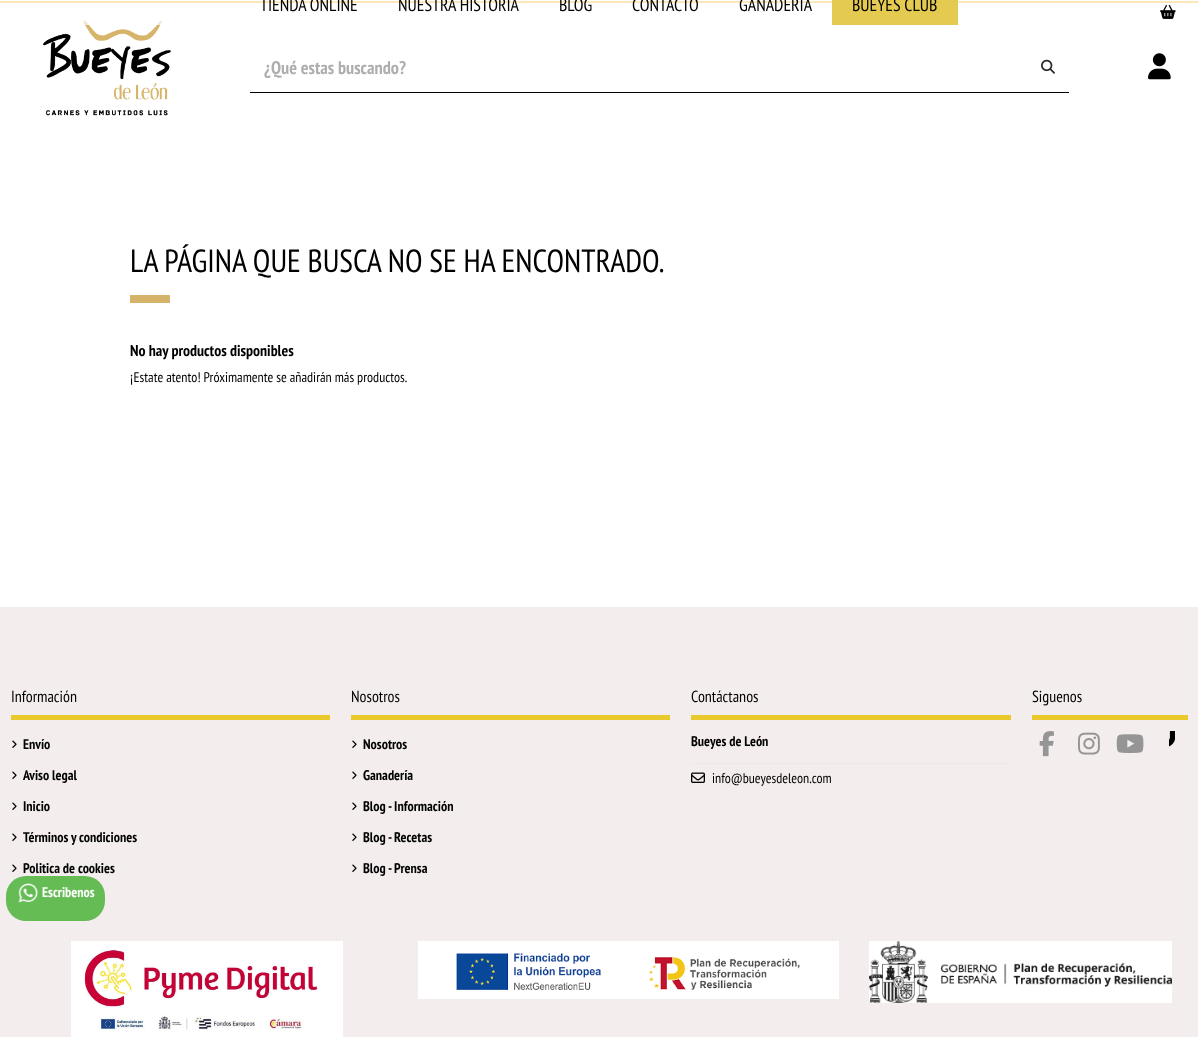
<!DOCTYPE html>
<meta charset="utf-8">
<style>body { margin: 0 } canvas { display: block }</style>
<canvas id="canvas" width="1198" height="1037"></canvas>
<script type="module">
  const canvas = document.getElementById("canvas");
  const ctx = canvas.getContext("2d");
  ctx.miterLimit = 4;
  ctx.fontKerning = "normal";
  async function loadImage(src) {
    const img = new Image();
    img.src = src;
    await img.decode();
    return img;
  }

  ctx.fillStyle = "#ffffff";
  ctx.fillRect(0, 0, 1198, 1037);
  ctx.fillStyle = "#f4b223";
  ctx.fillRect(0, 1, 1198, 2);
  ctx.drawImage(await loadImage("img2.png"), 43, 20, 128, 96);
  ctx.fillStyle = "rgba(255, 255, 255, 0.69)";
  ctx.fillRect(0, 1, 1198, 24);
  ctx.font = "17.75px PT Sans Narrow";
  ctx.fillStyle = "#000000";
  ctx.fillText("TIENDA ONLINE", 260, 11);
  ctx.fillText("NUESTRA HISTORIA", 398, 11);
  ctx.fillText("BLOG", 559, 11);
  ctx.fillText("CONTACTO", 632, 11);
  ctx.fillText("GANADERÍA", 739, 11);
  ctx.fillStyle = "#e4ca50";
  ctx.fillRect(832, 0, 126, 25);
  ctx.fillStyle = "#000000";
  ctx.fillText("BUEYES CLUB", 852, 11);
  ctx.drawImage(await loadImage("img1.png"), 1160, 5, 16, 14);
  ctx.fillRect(250, 92, 819, 1);
  ctx.font = "bold 18.25px PT Sans Narrow";
  ctx.fillStyle = "#aeaeae";
  ctx.fillText("¿Qué estas buscando?", 264, 74);
  ctx.drawImage(await loadImage("img3.png"), 1041, 59, 14, 15);
  ctx.drawImage(await loadImage("img4.png"), 1148, 53, 23, 27);
  ctx.font = "32px PT Sans Narrow";
  ctx.fillStyle = "#000000";
  ctx.fillText("LA PÁGINA QUE BUSCA NO SE HA ENCONTRADO.", 130, 272);
  ctx.fillStyle = "#d6b36a";
  ctx.fillRect(130, 295, 40, 8);
  ctx.font = "bold 15.75px PT Sans Narrow";
  ctx.fillStyle = "#000000";
  ctx.fillText("No hay productos disponibles", 130, 356);
  ctx.font = "14px PT Sans Narrow";
  ctx.fillText("¡Estate atento! Próximamente se añadirán más productos.", 130, 382);
  ctx.fillStyle = "#f3eded";
  ctx.fillRect(0, 607, 1198, 430);
  ctx.fillStyle = "#eac92c";
  ctx.fillRect(11, 715, 319, 5);
  ctx.font = "16px PT Sans Narrow";
  ctx.fillStyle = "#000000";
  ctx.fillText("Información", 11, 702);
  ctx.drawImage(await loadImage("img5.png"), 12, 740, 5, 8);
  ctx.font = "bold 14px PT Sans Narrow";
  ctx.fillText("Envío", 23, 749);
  ctx.drawImage(await loadImage("img5.png"), 12, 771, 5, 8);
  ctx.fillText("Aviso legal", 23, 780);
  ctx.drawImage(await loadImage("img5.png"), 12, 802, 5, 8);
  ctx.fillText("Inicio", 23, 811);
  ctx.drawImage(await loadImage("img5.png"), 12, 833, 5, 8);
  ctx.fillText("Términos y condiciones", 23, 842);
  ctx.drawImage(await loadImage("img5.png"), 12, 864, 5, 8);
  ctx.fillText("Politica de cookies", 23, 873);
  ctx.fillStyle = "#eac92c";
  ctx.fillRect(351, 715, 319, 5);
  ctx.font = "16px PT Sans Narrow";
  ctx.fillStyle = "#000000";
  ctx.fillText("Nosotros", 351, 702);
  ctx.drawImage(await loadImage("img5.png"), 352, 740, 5, 8);
  ctx.font = "bold 14px PT Sans Narrow";
  ctx.fillText("Nosotros", 363, 749);
  ctx.drawImage(await loadImage("img5.png"), 352, 771, 5, 8);
  ctx.fillText("Ganadería", 363, 780);
  ctx.drawImage(await loadImage("img5.png"), 352, 802, 5, 8);
  ctx.fillText("Blog - Información", 363, 811);
  ctx.drawImage(await loadImage("img5.png"), 352, 833, 5, 8);
  ctx.fillText("Blog - Recetas", 363, 842);
  ctx.drawImage(await loadImage("img5.png"), 352, 864, 5, 8);
  ctx.fillText("Blog - Prensa", 363, 873);
  ctx.fillStyle = "#eac92c";
  ctx.fillRect(691, 715, 320, 5);
  ctx.font = "16px PT Sans Narrow";
  ctx.fillStyle = "#000000";
  ctx.fillText("Contáctanos", 691, 702);
  ctx.font = "bold 14px PT Sans Narrow";
  ctx.fillText("Bueyes de León", 691, 746);
  ctx.fillStyle = "#eee8e8";
  ctx.fillRect(691, 763, 320, 1);
  ctx.drawImage(await loadImage("img6.png"), 691, 772, 14, 11);
  ctx.font = "14px PT Sans Narrow";
  ctx.fillStyle = "#000000";
  ctx.fillText("info@bueyesdeleon.com", 712, 783);
  ctx.fillStyle = "#eac92c";
  ctx.fillRect(1032, 715, 156, 5);
  ctx.font = "16px PT Sans Narrow";
  ctx.fillStyle = "#000000";
  ctx.fillText("Siguenos", 1032, 702);
  ctx.drawImage(await loadImage("img7.png"), 1039, 731, 15, 26);
  ctx.drawImage(await loadImage("img8.png"), 1078, 732, 22, 23);
  ctx.drawImage(await loadImage("img9.png"), 1116, 734, 28, 19);
  ctx.drawImage(await loadImage("img10.png"), 1169, 731, 6, 16);
  ctx.fillStyle = "#65bc54";
  ctx.beginPath();
  ctx.roundRect(6, 876, 99, 45, 20);
  ctx.fill();
  ctx.drawImage(await loadImage("img11.png"), 18, 883, 21, 20);
  ctx.font = "bold 14px PT Sans Narrow";
  ctx.fillStyle = "#ffffff";
  ctx.fillText("Escribenos", 42, 897);
  ctx.drawImage(await loadImage("img12.png"), 71, 941, 272, 96);
  ctx.drawImage(await loadImage("img13.png"), 418, 941, 421, 58);
  ctx.drawImage(await loadImage("img14.png"), 869, 941, 303, 62);
</script>
